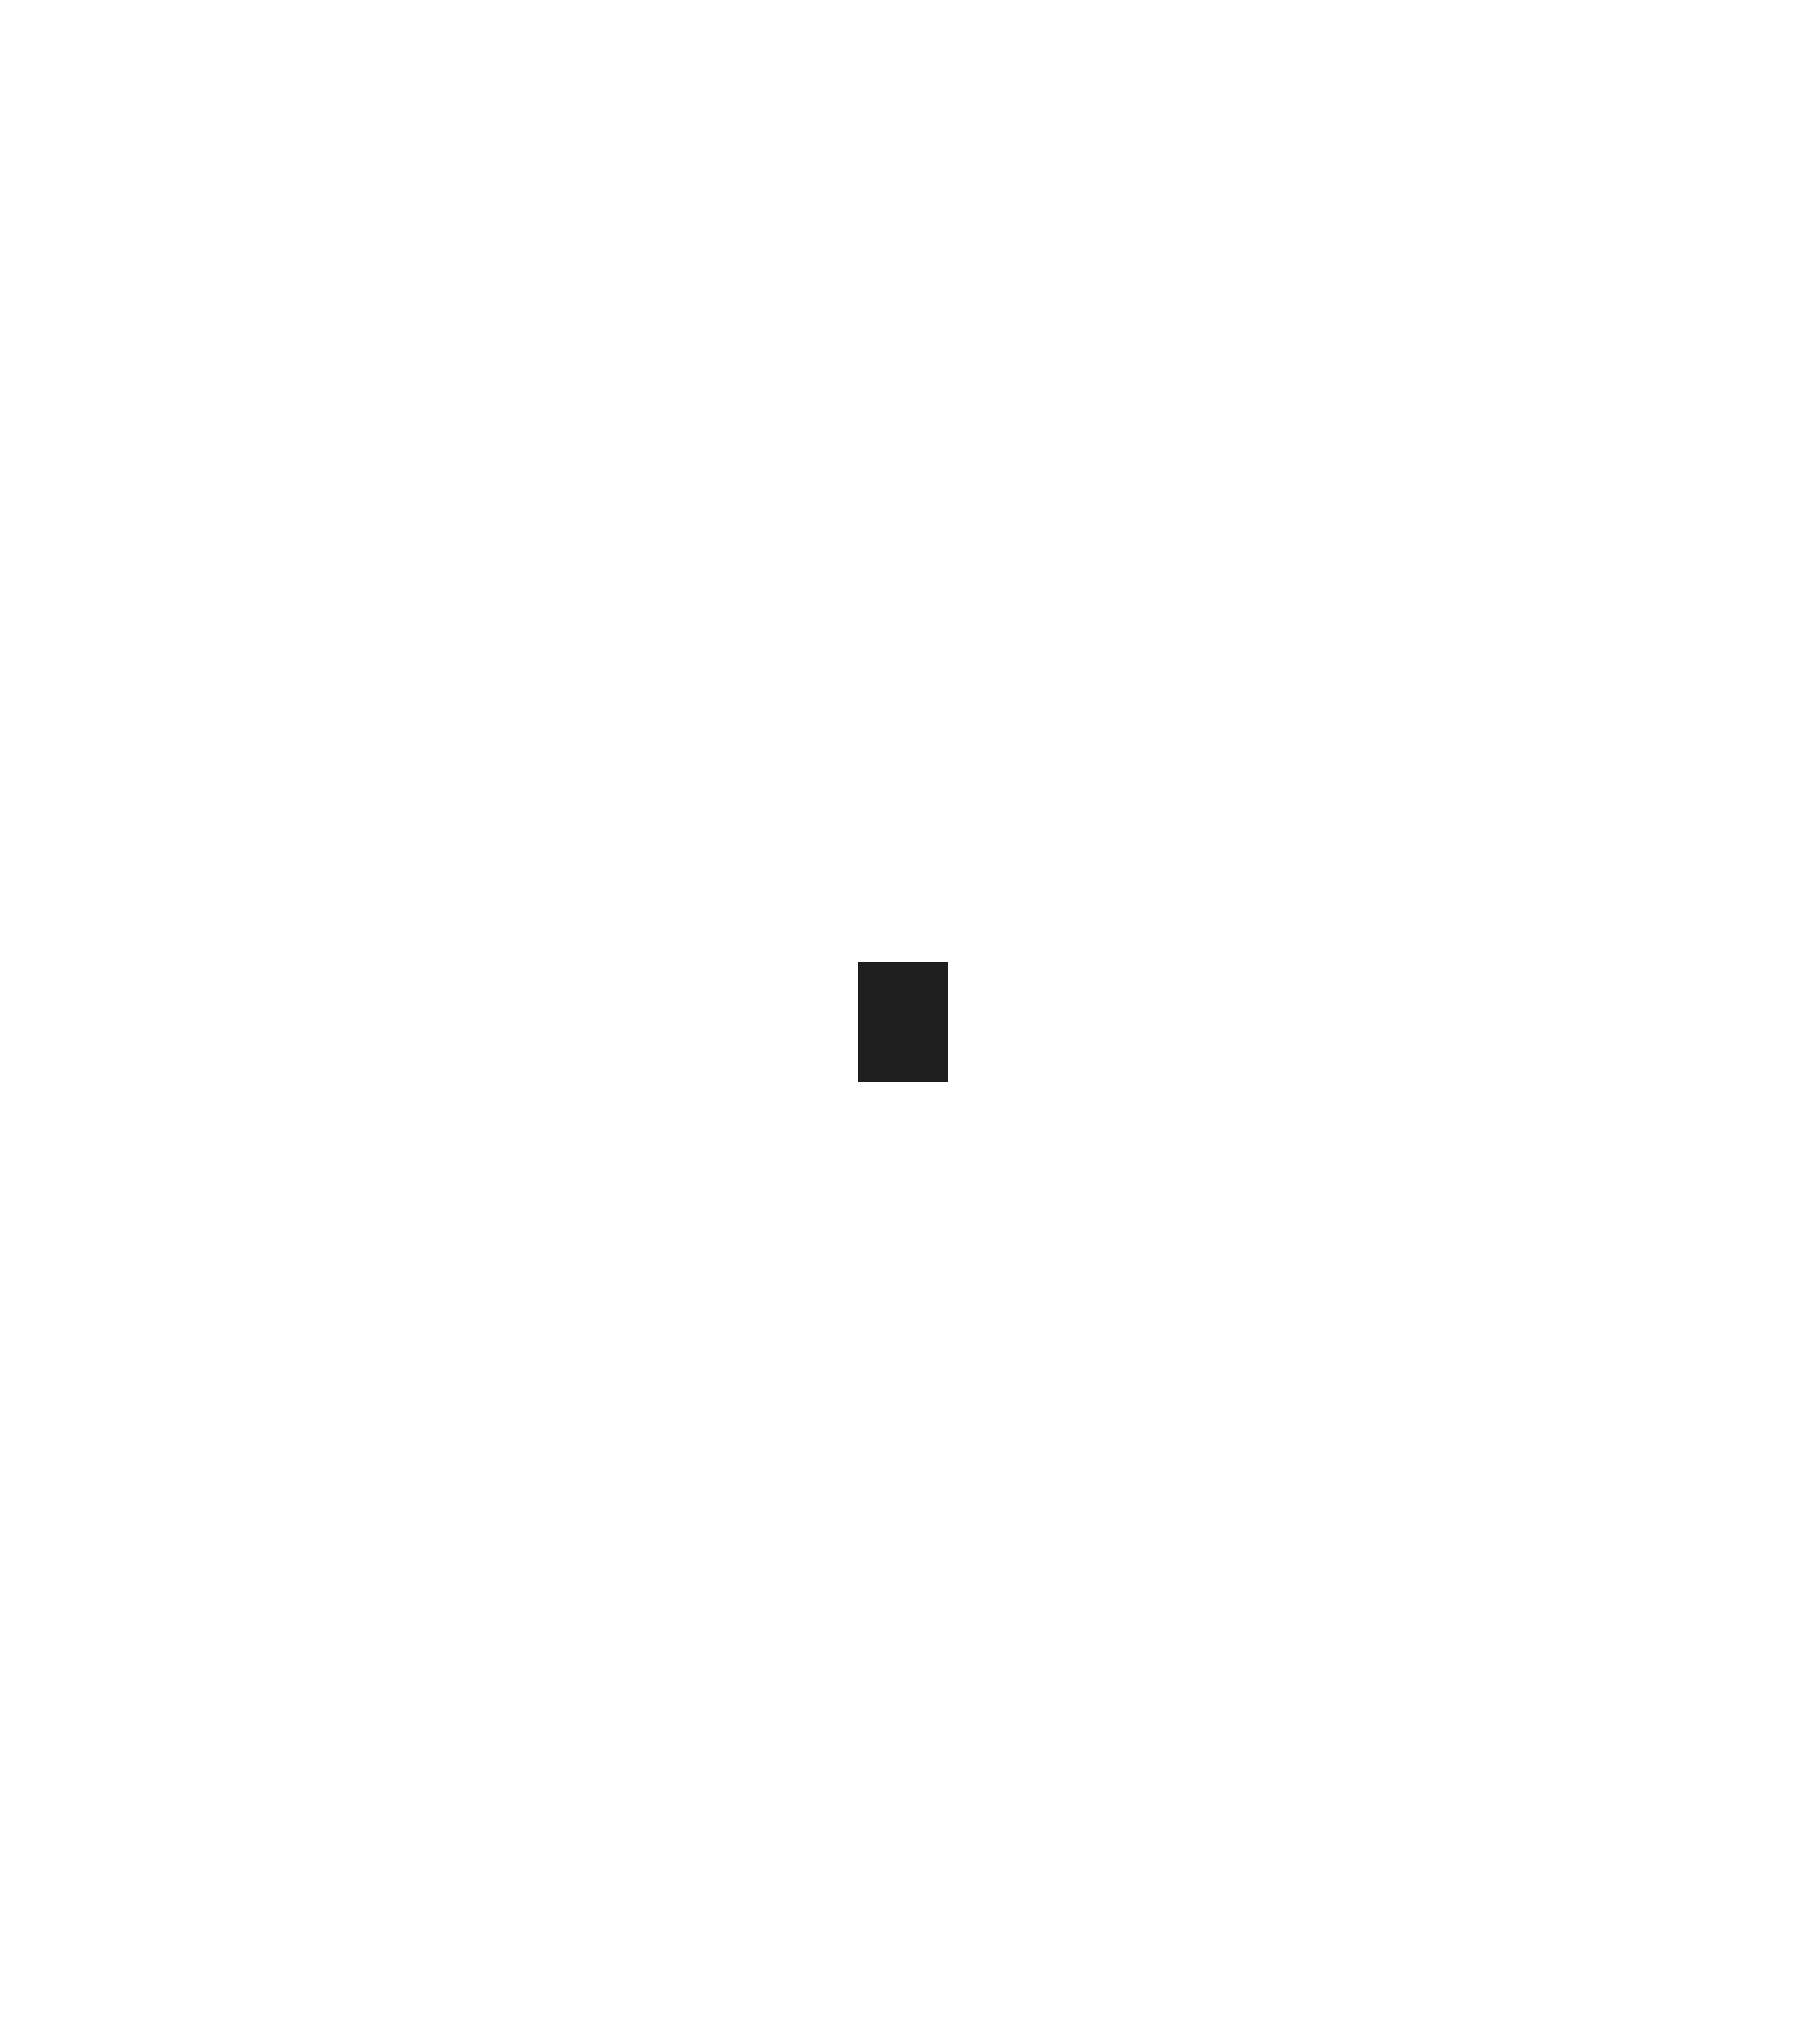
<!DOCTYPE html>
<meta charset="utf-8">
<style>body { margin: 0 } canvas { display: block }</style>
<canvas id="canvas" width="1806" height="2043"></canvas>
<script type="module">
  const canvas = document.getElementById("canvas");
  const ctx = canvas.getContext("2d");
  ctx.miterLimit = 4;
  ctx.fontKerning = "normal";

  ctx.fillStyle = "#ffffff";
  ctx.fillRect(0, 0, 1806, 2043);
  ctx.fillStyle = "#1e1e1e";
  ctx.fillRect(858, 962, 90, 120);
</script>
